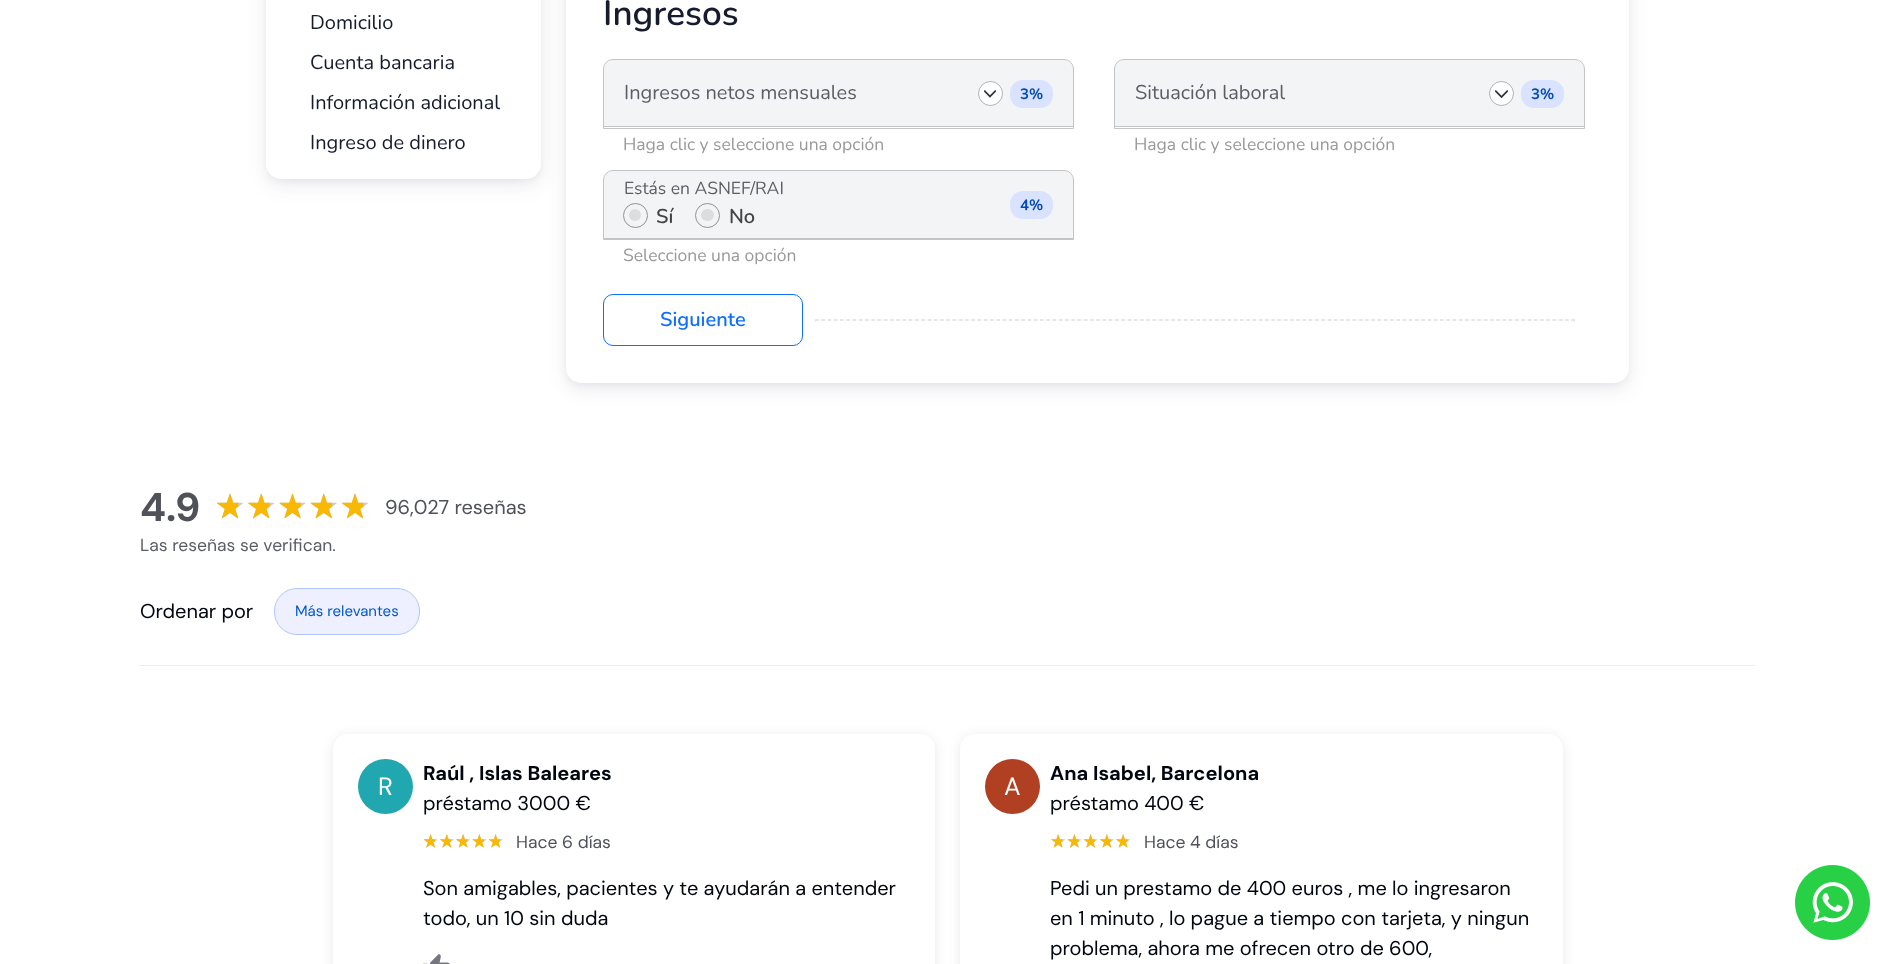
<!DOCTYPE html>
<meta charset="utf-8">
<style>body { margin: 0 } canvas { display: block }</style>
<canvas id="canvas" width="1895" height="964"></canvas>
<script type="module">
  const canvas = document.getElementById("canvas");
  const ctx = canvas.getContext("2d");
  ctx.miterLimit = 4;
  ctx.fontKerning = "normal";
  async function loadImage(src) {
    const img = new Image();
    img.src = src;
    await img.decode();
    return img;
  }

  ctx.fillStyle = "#ffffff";
  ctx.fillRect(0, 0, 1895, 964);
  ctx.fillStyle = "rgba(0, 0, 0, 0.04)";
  ctx.filter = "blur(3px)";
  ctx.beginPath();
  ctx.roundRect(266, -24, 275, 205, 15);
  ctx.fill();
  ctx.filter = "none";
  ctx.fillStyle = "rgba(50, 50, 93, 0.1)";
  ctx.filter = "blur(9.5px)";
  ctx.beginPath();
  ctx.roundRect(266, -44, 275, 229, 15);
  ctx.fill();
  ctx.filter = "none";
  ctx.fillStyle = "#ffffff";
  ctx.beginPath();
  ctx.roundRect(266, -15, 275, 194, 15);
  ctx.fill();
  ctx.font = "20px Nunito";
  ctx.fillStyle = "#161c2d";
  ctx.fillText("Domicilio", 310, 29);
  ctx.fillText("Cuenta bancaria", 310, 69);
  ctx.fillText("Información adicional", 310, 109);
  ctx.fillText("Ingreso de dinero", 310, 149);
  ctx.fillStyle = "rgba(0, 0, 0, 0.04)";
  ctx.filter = "blur(3px)";
  ctx.beginPath();
  ctx.roundRect(566, -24, 1063, 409, 15);
  ctx.fill();
  ctx.filter = "none";
  ctx.fillStyle = "rgba(50, 50, 93, 0.1)";
  ctx.filter = "blur(9.5px)";
  ctx.beginPath();
  ctx.roundRect(566, -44, 1063, 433, 15);
  ctx.fill();
  ctx.filter = "none";
  ctx.fillStyle = "#ffffff";
  ctx.beginPath();
  ctx.roundRect(566, -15, 1063, 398, 15);
  ctx.fill();
  ctx.font = "600 35px Nunito";
  ctx.fillStyle = "#161c2d";
  ctx.fillText("Ingresos", 603, 25);
  ctx.fillStyle = "#f3f4f5";
  ctx.beginPath();
  ctx.roundRect(604, 60, 469, 66, [9, 9, 0, 0]);
  ctx.fill();
  ctx.beginPath();
  ctx.roundRect(603.5, 59.5, 470, 69, [9.5, 9.5, 0, 0]);
  ctx.strokeStyle = "#c3c4c5";
  ctx.stroke();
  ctx.fillStyle = "#c3c4c5";
  ctx.fillRect(603, 126, 471, 1);
  ctx.font = "20px Nunito";
  ctx.fillStyle = "#5c5e67";
  ctx.fillText("Ingresos netos mensuales", 624, 99);
  ctx.fillStyle = "#ffffff";
  ctx.beginPath();
  ctx.arc(990.5, 93.5, 12.5, 0, Math.PI * 2);
  ctx.fill();
  ctx.drawImage(await loadImage("img1.png"), 984, 90, 12, 8);
  ctx.beginPath();
  ctx.arc(990.5, 93.5, 12, 0, Math.PI * 2);
  ctx.strokeStyle = "rgba(0, 0, 0, 0.3)";
  ctx.stroke();
  ctx.fillStyle = "#d9e2ff";
  ctx.beginPath();
  ctx.roundRect(1010, 80, 43, 28, 13);
  ctx.fill();
  ctx.font = "bold 15px Nunito";
  ctx.fillStyle = "#004cb4";
  ctx.fillText("3%", 1020, 99);
  ctx.font = "17.5px Nunito";
  ctx.fillStyle = "#999999";
  ctx.fillText("Haga clic y seleccione una opción", 623, 150);
  ctx.fillStyle = "#f3f4f5";
  ctx.beginPath();
  ctx.roundRect(1115, 60, 469, 66, [9, 9, 0, 0]);
  ctx.fill();
  ctx.beginPath();
  ctx.roundRect(1114.5, 59.5, 470, 69, [9.5, 9.5, 0, 0]);
  ctx.strokeStyle = "#c3c4c5";
  ctx.stroke();
  ctx.fillStyle = "#c3c4c5";
  ctx.fillRect(1114, 126, 471, 1);
  ctx.font = "20px Nunito";
  ctx.fillStyle = "#5c5e67";
  ctx.fillText("Situación laboral", 1135, 99);
  ctx.fillStyle = "#ffffff";
  ctx.beginPath();
  ctx.arc(1501.5, 93.5, 12.5, 0, Math.PI * 2);
  ctx.fill();
  ctx.drawImage(await loadImage("img2.png"), 1495, 90, 13, 9);
  ctx.beginPath();
  ctx.arc(1501.5, 93.5, 12, 0, Math.PI * 2);
  ctx.strokeStyle = "rgba(0, 0, 0, 0.3)";
  ctx.stroke();
  ctx.fillStyle = "#d9e2ff";
  ctx.beginPath();
  ctx.roundRect(1521, 80, 43, 28, 13);
  ctx.fill();
  ctx.font = "bold 15px Nunito";
  ctx.fillStyle = "#004cb4";
  ctx.fillText("3%", 1531, 99);
  ctx.font = "17.5px Nunito";
  ctx.fillStyle = "#999999";
  ctx.fillText("Haga clic y seleccione una opción", 1134, 150);
  ctx.fillStyle = "#f3f4f5";
  ctx.beginPath();
  ctx.roundRect(604, 171, 469, 67, [9, 9, 0, 0]);
  ctx.fill();
  ctx.beginPath();
  ctx.roundRect(603.5, 170.5, 470, 69, [9.5, 9.5, 0, 0]);
  ctx.strokeStyle = "#c3c4c5";
  ctx.stroke();
  ctx.fillStyle = "#c3c4c5";
  ctx.fillRect(603, 238, 471, 1);
  ctx.fillStyle = "#5c5e67";
  ctx.fillText("Estás en ASNEF/RAI", 624, 194);
  ctx.fillStyle = "#d9e2ff";
  ctx.beginPath();
  ctx.roundRect(1010, 191, 43, 28, 13);
  ctx.fill();
  ctx.font = "bold 15px Nunito";
  ctx.fillStyle = "#004cb4";
  ctx.fillText("4%", 1020, 210);
  ctx.fillStyle = "#dddddd";
  ctx.beginPath();
  ctx.arc(635, 215, 6, 0, Math.PI * 2);
  ctx.fill();
  ctx.beginPath();
  ctx.arc(635.5, 215.5, 12, 0, Math.PI * 2);
  ctx.strokeStyle = "#929293";
  ctx.stroke();
  ctx.font = "600 20px Nunito";
  ctx.fillStyle = "#444444";
  ctx.fillText("Sí", 656, 223);
  ctx.fillStyle = "#dddddd";
  ctx.beginPath();
  ctx.roundRect(701, 209, 13, 12, 6);
  ctx.fill();
  ctx.beginPath();
  ctx.arc(707.5, 215.5, 12, 0, Math.PI * 2);
  ctx.stroke();
  ctx.fillStyle = "#444444";
  ctx.fillText("No", 729, 223);
  ctx.font = "17.5px Nunito";
  ctx.fillStyle = "#999999";
  ctx.fillText("Seleccione una opción", 623, 261);
  ctx.beginPath();
  ctx.roundRect(603.5, 294.5, 199, 51, 9.5);
  ctx.strokeStyle = "#0f6ffa";
  ctx.stroke();
  ctx.font = "600 20px Nunito";
  ctx.fillStyle = "#0f6ffa";
  ctx.fillText("Siguiente", 660, 326);
  ctx.beginPath();
  ctx.moveTo(815, 319.5);
  ctx.lineTo(1575, 319.5);
  ctx.strokeStyle = "#e6e6e6";
  ctx.lineWidth = 1.2;
  ctx.setLineDash([3.75, 2.5]);
  ctx.stroke();
  ctx.fillStyle = "#e6e6e6";
  ctx.fillRect(1574, 319, 1, 3);
  ctx.beginPath();
  ctx.moveTo(815, 320.5);
  ctx.lineTo(1575, 320.5);
  ctx.stroke();
  ctx.fillRect(815, 319, 1, 3);
  ctx.fillStyle = "#ecedf3";
  ctx.fillRect(140, 665, 1615, 1);
  ctx.font = "bold 40px DM Sans";
  ctx.fillStyle = "#50525a";
  ctx.fillText("4.9", 140, 521);
  ctx.drawImage(await loadImage("img3.png"), 217, 493, 26, 26);
  ctx.drawImage(await loadImage("img4.png"), 248, 493, 27, 26);
  ctx.drawImage(await loadImage("img5.png"), 279, 493, 27, 26);
  ctx.drawImage(await loadImage("img6.png"), 310, 493, 27, 26);
  ctx.drawImage(await loadImage("img3.png"), 342, 493, 26, 26);
  ctx.font = "20px DM Sans";
  ctx.fillText("96,027 reseñas", 385, 514);
  ctx.font = "17.5px DM Sans";
  ctx.fillStyle = "#5c5e67";
  ctx.fillText("Las reseñas se verifican.", 140, 551);
  ctx.font = "20px DM Sans";
  ctx.fillStyle = "#000610";
  ctx.fillText("Ordenar por", 140, 618);
  ctx.fillStyle = "#eff0ff";
  ctx.beginPath();
  ctx.roundRect(274.5, 588.5, 145, 46, 22.5);
  ctx.fill();
  ctx.strokeStyle = "#b0c6ff";
  ctx.lineWidth = 1;
  ctx.setLineDash([]);
  ctx.stroke();
  ctx.font = "15px DM Sans";
  ctx.fillStyle = "#0058cc";
  ctx.fillText("Más relevantes", 295, 616);
  ctx.save();
  ctx.beginPath();
  ctx.moveTo(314, 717);
  ctx.lineTo(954, 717);
  ctx.lineTo(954, 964);
  ctx.lineTo(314, 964);
  ctx.closePath();
  ctx.moveTo(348, 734);
  ctx.lineTo(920, 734);
  ctx.bezierCurveTo(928.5, 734, 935, 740.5, 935, 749);
  ctx.lineTo(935, 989);
  ctx.bezierCurveTo(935, 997.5, 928.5, 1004, 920, 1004);
  ctx.lineTo(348, 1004);
  ctx.bezierCurveTo(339.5, 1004, 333, 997.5, 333, 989);
  ctx.lineTo(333, 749);
  ctx.bezierCurveTo(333, 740.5, 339.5, 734, 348, 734);
  ctx.closePath();
  ctx.clip("evenodd");
  ctx.fillStyle = "rgba(25, 27, 35, 0.1)";
  ctx.filter = "blur(6px)";
  ctx.beginPath();
  ctx.roundRect(333, 736, 602, 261, 15);
  ctx.fill();
  ctx.filter = "none";
  ctx.restore();
  ctx.fillStyle = "#21a7b0";
  ctx.beginPath();
  ctx.arc(385.5, 786.5, 27.5, 0, Math.PI * 2);
  ctx.fill();
  ctx.font = "25px DM Sans";
  ctx.fillStyle = "#ffffff";
  ctx.fillText("R", 378, 795);
  ctx.font = "bold 20px DM Sans";
  ctx.fillStyle = "#000610";
  ctx.fillText("Raúl , Islas Baleares", 423, 780);
  ctx.font = "20px DM Sans";
  ctx.fillText("préstamo 3000 €", 423, 810);
  ctx.drawImage(await loadImage("img7.png"), 423, 834, 15, 14);
  ctx.drawImage(await loadImage("img8.png"), 440, 834, 14, 14);
  ctx.drawImage(await loadImage("img9.png"), 456, 834, 14, 14);
  ctx.drawImage(await loadImage("img10.png"), 472, 834, 15, 14);
  ctx.drawImage(await loadImage("img7.png"), 488, 834, 15, 14);
  ctx.font = "17.5px DM Sans";
  ctx.fillStyle = "#50525a";
  ctx.fillText("Hace 6 días", 516, 848);
  ctx.font = "20px DM Sans";
  ctx.fillStyle = "#000610";
  ctx.fillText("Son amigables, pacientes y te ayudarán a entender", 423, 895);
  ctx.fillText("todo, un 10 sin duda", 423, 925);
  ctx.drawImage(await loadImage("img11.png"), 423, 954, 27, 10);
  ctx.save();
  ctx.beginPath();
  ctx.moveTo(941, 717);
  ctx.lineTo(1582, 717);
  ctx.lineTo(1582, 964);
  ctx.lineTo(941, 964);
  ctx.closePath();
  ctx.moveTo(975, 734);
  ctx.lineTo(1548, 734);
  ctx.bezierCurveTo(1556.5, 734, 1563, 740.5, 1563, 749);
  ctx.lineTo(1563, 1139);
  ctx.bezierCurveTo(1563, 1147.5, 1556.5, 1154, 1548, 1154);
  ctx.lineTo(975, 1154);
  ctx.bezierCurveTo(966.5, 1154, 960, 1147.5, 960, 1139);
  ctx.lineTo(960, 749);
  ctx.bezierCurveTo(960, 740.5, 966.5, 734, 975, 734);
  ctx.closePath();
  ctx.clip("evenodd");
  ctx.fillStyle = "rgba(25, 27, 35, 0.1)";
  ctx.filter = "blur(6px)";
  ctx.beginPath();
  ctx.roundRect(960, 736, 603, 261, 15);
  ctx.fill();
  ctx.filter = "none";
  ctx.restore();
  ctx.fillStyle = "#b04021";
  ctx.beginPath();
  ctx.arc(1012.5, 786.5, 27.5, 0, Math.PI * 2);
  ctx.fill();
  ctx.font = "25px DM Sans";
  ctx.fillStyle = "#ffffff";
  ctx.fillText("A", 1004, 795);
  ctx.font = "bold 20px DM Sans";
  ctx.fillStyle = "#000610";
  ctx.fillText("Ana Isabel, Barcelona", 1050, 780);
  ctx.font = "20px DM Sans";
  ctx.fillText("préstamo 400 €", 1050, 810);
  ctx.drawImage(await loadImage("img9.png"), 1051, 834, 14, 14);
  ctx.drawImage(await loadImage("img10.png"), 1067, 834, 15, 14);
  ctx.drawImage(await loadImage("img7.png"), 1083, 834, 15, 14);
  ctx.drawImage(await loadImage("img8.png"), 1100, 834, 14, 14);
  ctx.drawImage(await loadImage("img9.png"), 1116, 834, 14, 14);
  ctx.font = "17.5px DM Sans";
  ctx.fillStyle = "#50525a";
  ctx.fillText("Hace 4 días", 1144, 848);
  ctx.font = "20px DM Sans";
  ctx.fillStyle = "#000610";
  ctx.fillText("Pedi un prestamo de 400 euros , me lo ingresaron", 1050, 895);
  ctx.fillText("en 1 minuto , lo pague a tiempo con tarjeta, y ningun", 1050, 925);
  ctx.fillText("problema, ahora me ofrecen otro de 600,", 1050, 955);
  ctx.drawImage(await loadImage("img12.png"), 1795, 865, 75, 75);
</script>
